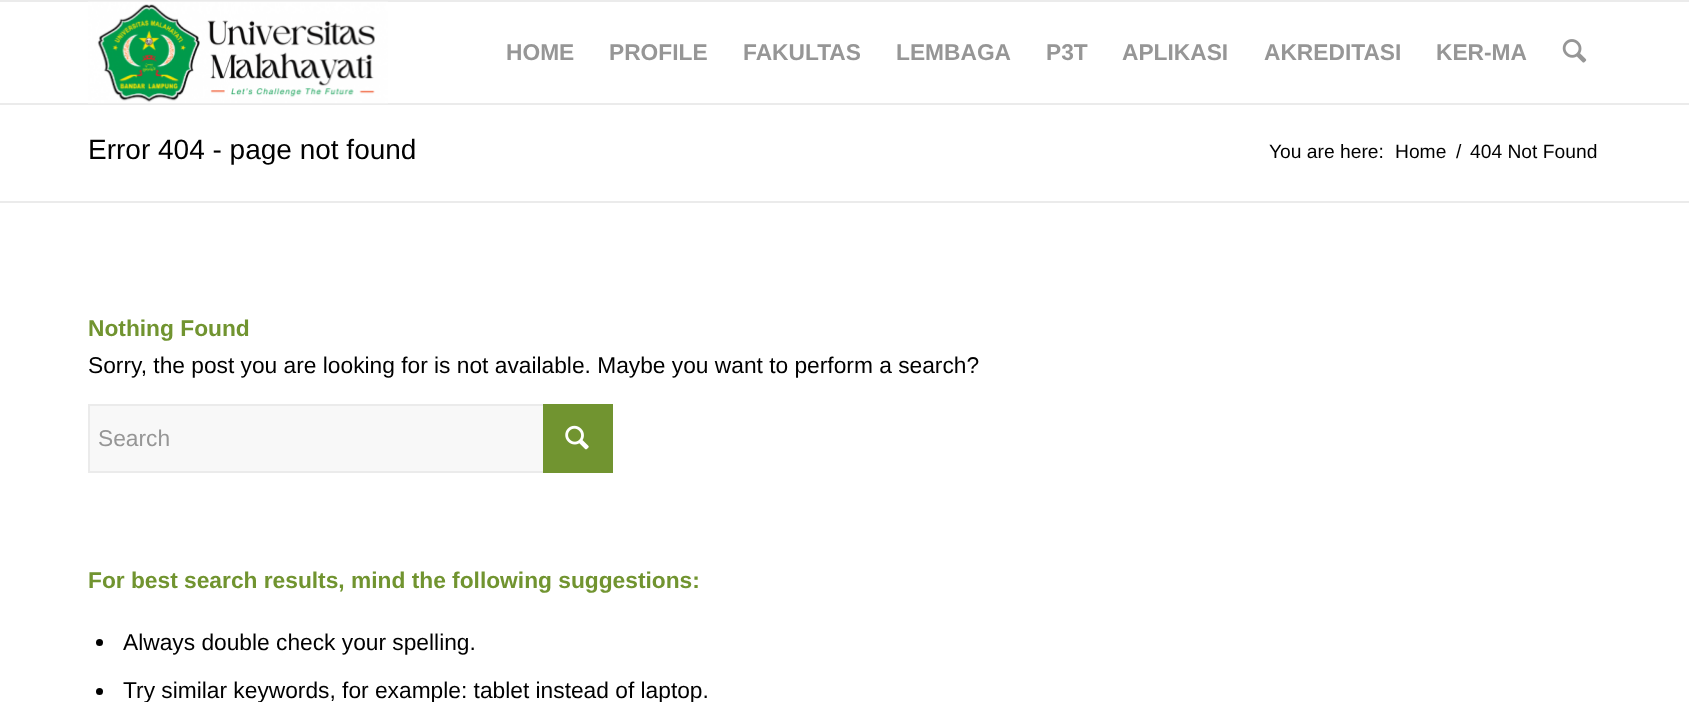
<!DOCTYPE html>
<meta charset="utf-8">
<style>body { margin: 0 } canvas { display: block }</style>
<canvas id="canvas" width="1689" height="702"></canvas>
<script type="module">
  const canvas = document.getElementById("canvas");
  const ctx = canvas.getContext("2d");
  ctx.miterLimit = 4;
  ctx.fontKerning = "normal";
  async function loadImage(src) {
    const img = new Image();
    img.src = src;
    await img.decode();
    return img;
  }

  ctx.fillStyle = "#ffffff";
  ctx.fillRect(0, 0, 1689, 702);
  ctx.fillStyle = "#ebebeb";
  ctx.fillRect(0, 0, 1689, 2);
  ctx.fillRect(0, 103, 1689, 2);
  ctx.drawImage(await loadImage("img1.png"), 88, 1, 300, 103);
  ctx.font = "bold 22.75px Liberation Sans";
  ctx.fillStyle = "#969696";
  ctx.fillText("HOME", 506, 60);
  ctx.fillText("PROFILE", 609, 60);
  ctx.fillText("FAKULTAS", 743, 60);
  ctx.fillText("LEMBAGA", 896, 60);
  ctx.fillText("P3T", 1046, 60);
  ctx.fillText("APLIKASI", 1122, 60);
  ctx.fillText("AKREDITASI", 1264, 60);
  ctx.fillText("KER-MA", 1436, 60);
  ctx.drawImage(await loadImage("img2.png"), 1562, 39, 25, 24);
  ctx.font = "28px Liberation Sans";
  ctx.fillStyle = "#000000";
  ctx.fillText("Error 404 - page not found", 88, 159);
  ctx.font = "19.25px Liberation Sans";
  ctx.fillText("You are here:", 1269, 158);
  ctx.fillText("Home", 1395, 158);
  ctx.fillText("/", 1456, 158);
  ctx.fillText("404 Not Found", 1470, 158);
  ctx.fillStyle = "#ebebeb";
  ctx.fillRect(0, 201, 1689, 2);
  ctx.font = "bold 22.75px Liberation Sans";
  ctx.fillStyle = "#719430";
  ctx.fillText("Nothing Found", 88, 336);
  ctx.font = "22.75px Liberation Sans";
  ctx.fillStyle = "#000000";
  ctx.fillText("Sorry, the post you are looking for is not available. Maybe you want to perform a search?", 88, 373);
  ctx.fillStyle = "#f8f8f8";
  ctx.fillRect(90, 406, 453, 65);
  ctx.strokeStyle = "#ebebeb";
  ctx.lineWidth = 2;
  ctx.strokeRect(89, 405, 523, 67);
  ctx.fillStyle = "#969696";
  ctx.fillText("Search", 98, 446);
  ctx.fillStyle = "#719430";
  ctx.fillRect(543, 404, 70, 69);
  ctx.drawImage(await loadImage("img3.png"), 565, 425, 24, 25);
  ctx.font = "bold 22.75px Liberation Sans";
  ctx.fillText("For best search results, mind the following suggestions:", 88, 588);
  ctx.fillStyle = "#000000";
  ctx.beginPath();
  ctx.arc(99.5, 642.5, 3.5, 0, Math.PI * 2);
  ctx.fill();
  ctx.font = "22.75px Liberation Sans";
  ctx.fillText("Always double check your spelling.", 123, 650);
  ctx.beginPath();
  ctx.arc(99.5, 691.5, 3.5, 0, Math.PI * 2);
  ctx.fill();
  ctx.fillText("Try similar keywords, for example: tablet instead of laptop.", 123, 698);
</script>
